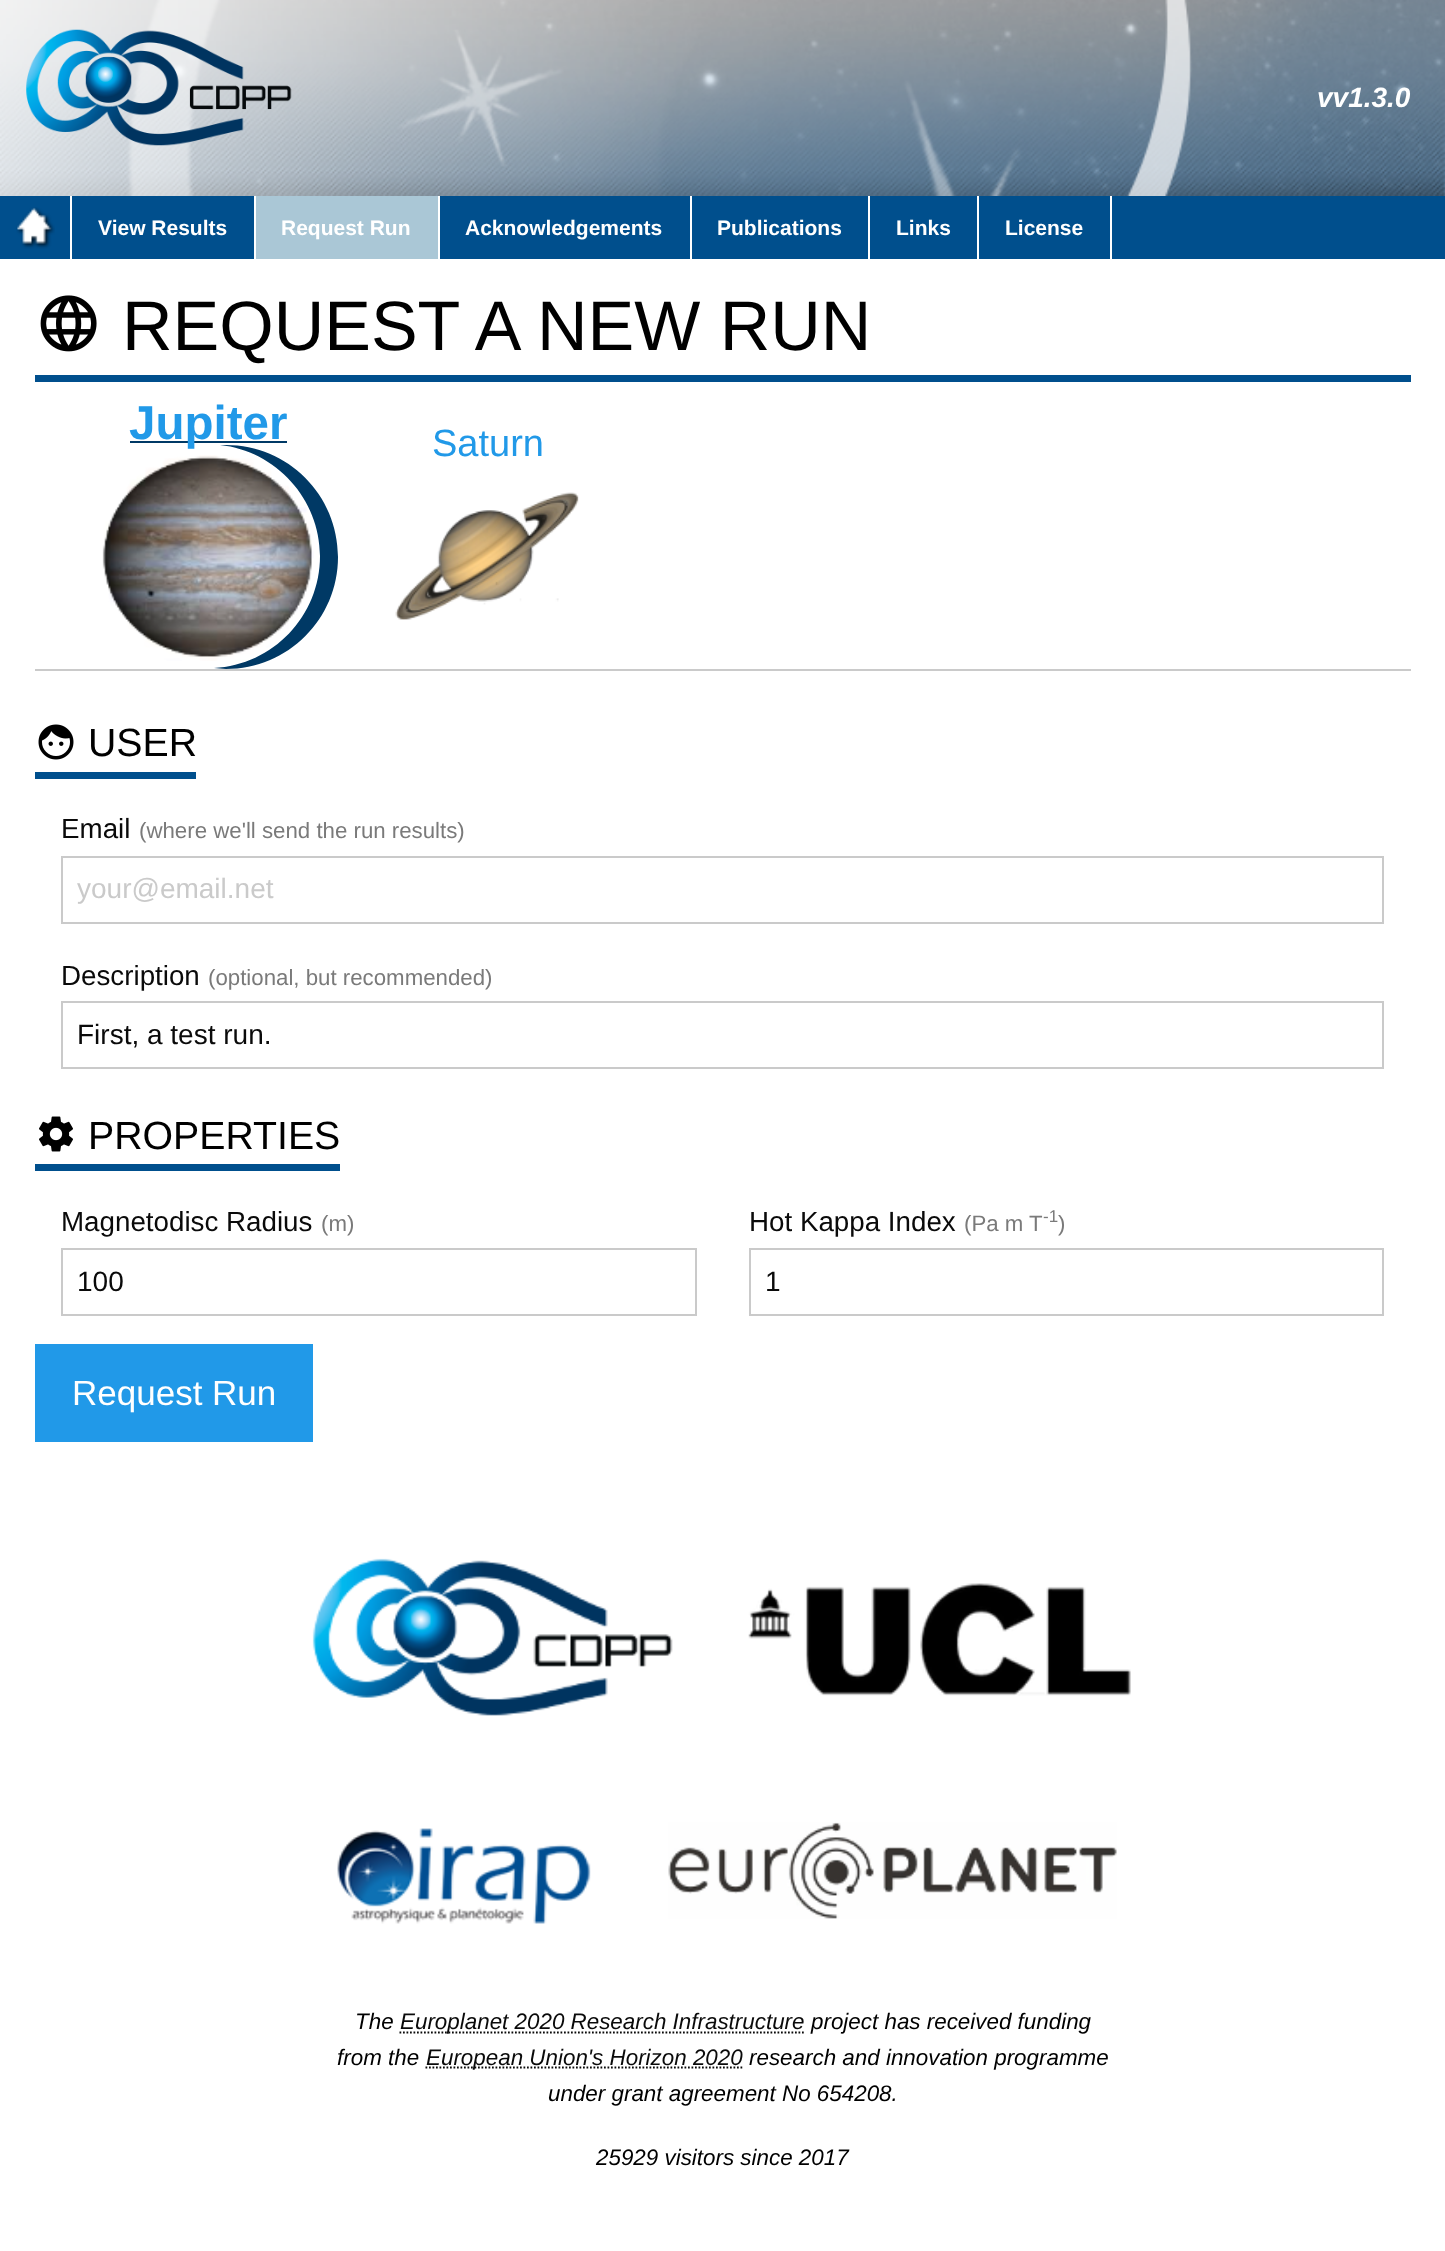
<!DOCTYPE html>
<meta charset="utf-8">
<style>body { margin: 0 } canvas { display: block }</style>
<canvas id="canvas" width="1445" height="2251"></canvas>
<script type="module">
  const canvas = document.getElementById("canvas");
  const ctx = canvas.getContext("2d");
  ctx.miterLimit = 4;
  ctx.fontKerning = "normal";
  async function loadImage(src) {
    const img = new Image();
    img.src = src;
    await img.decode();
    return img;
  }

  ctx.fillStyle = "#ffffff";
  ctx.fillRect(0, 0, 1445, 2251);
  ctx.drawImage(await loadImage("img1.png"), 0, 0, 1445, 196);
  ctx.drawImage(await loadImage("img2.png"), 26, 29, 266, 117);
  ctx.font = "italic bold 28px Liberation Sans";
  ctx.fillText("vv1.3.0", 1317, 107);
  ctx.fillStyle = "#004f8d";
  ctx.fillRect(0, 196, 1445, 63);
  ctx.drawImage(await loadImage("img3.png"), 16, 207, 39, 42);
  ctx.fillStyle = "#ffffff";
  ctx.fillRect(70, 196, 2, 63);
  ctx.fillRect(254, 196, 2, 63);
  ctx.font = "bold 21px Liberation Sans";
  ctx.fillText("View Results", 98, 235);
  ctx.fillStyle = "#aac7d6";
  ctx.fillRect(256, 196, 182, 63);
  ctx.fillStyle = "#ffffff";
  ctx.fillRect(438, 196, 2, 63);
  ctx.fillText("Request Run", 281, 235);
  ctx.fillRect(690, 196, 2, 63);
  ctx.fillText("Acknowledgements", 465, 235);
  ctx.fillRect(868, 196, 2, 63);
  ctx.fillText("Publications", 717, 235);
  ctx.fillRect(977, 196, 2, 63);
  ctx.fillText("Links", 896, 235);
  ctx.fillRect(1110, 196, 2, 63);
  ctx.fillText("License", 1005, 235);
  ctx.fillStyle = "#004f8d";
  ctx.fillRect(35, 375, 1376, 7);
  ctx.drawImage(await loadImage("img4.png"), 40, 295, 57, 57);
  ctx.font = "70px Liberation Sans";
  ctx.fillStyle = "#000000";
  ctx.fillText("REQUEST A NEW RUN", 122, 350);
  ctx.fillStyle = "#003965";
  ctx.beginPath();
  ctx.moveTo(226, 445);
  ctx.lineTo(220, 445);
  ctx.bezierCurveTo(276, 451, 320, 499, 320, 556);
  ctx.bezierCurveTo(320, 616, 273, 665, 214, 668);
  ctx.lineTo(226, 669);
  ctx.bezierCurveTo(288, 669, 338, 619, 338, 557);
  ctx.bezierCurveTo(338, 495, 288, 445, 226, 445);
  ctx.closePath();
  ctx.fill();
  ctx.drawImage(await loadImage("img5.png"), 102, 455, 212, 206);
  ctx.fillRect(130, 441, 157, 2);
  ctx.font = "bold 47.5px Liberation Sans";
  ctx.fillStyle = "#2199e8";
  ctx.fillText("Jupiter", 129, 439);
  ctx.drawImage(await loadImage("img6.png"), 395, 492, 184, 128);
  ctx.font = "38px Liberation Sans";
  ctx.fillText("Saturn", 432, 456);
  ctx.fillStyle = "#cacaca";
  ctx.fillRect(35, 669, 1376, 2);
  ctx.fillStyle = "#004f8d";
  ctx.fillRect(35, 772, 161, 7);
  ctx.drawImage(await loadImage("img7.png"), 38, 724, 36, 36);
  ctx.font = "39.25px Liberation Sans";
  ctx.fillStyle = "#000000";
  ctx.fillText("USER", 88, 756);
  ctx.font = "27.75px Liberation Sans";
  ctx.fillStyle = "#0a0a0a";
  ctx.fillText("Email", 61, 838);
  ctx.font = "22.25px Liberation Sans";
  ctx.fillStyle = "#7a7a7a";
  ctx.fillText("(where we'll send the run results)", 139, 838);
  ctx.strokeStyle = "#cacaca";
  ctx.lineWidth = 2;
  ctx.strokeRect(62, 857, 1321, 66);
  ctx.font = "28px Liberation Sans";
  ctx.fillStyle = "#cacaca";
  ctx.fillText("your@email.net", 77, 898);
  ctx.font = "27.75px Liberation Sans";
  ctx.fillStyle = "#0a0a0a";
  ctx.fillText("Description", 61, 985);
  ctx.font = "22.25px Liberation Sans";
  ctx.fillStyle = "#7a7a7a";
  ctx.fillText("(optional, but recommended)", 208, 985);
  ctx.strokeRect(62, 1002, 1321, 66);
  ctx.font = "28px Liberation Sans";
  ctx.fillStyle = "#0a0a0a";
  ctx.fillText("First, a test run.", 77, 1044);
  ctx.fillStyle = "#004f8d";
  ctx.fillRect(35, 1164, 305, 7);
  ctx.drawImage(await loadImage("img8.png"), 39, 1116, 34, 36);
  ctx.font = "39.25px Liberation Sans";
  ctx.fillStyle = "#000000";
  ctx.fillText("PROPERTIES", 88, 1149);
  ctx.font = "27.75px Liberation Sans";
  ctx.fillStyle = "#0a0a0a";
  ctx.fillText("Magnetodisc Radius", 61, 1231);
  ctx.font = "22.25px Liberation Sans";
  ctx.fillStyle = "#7a7a7a";
  ctx.fillText("(m)", 321, 1231);
  ctx.strokeRect(62, 1249, 634, 66);
  ctx.font = "28px Liberation Sans";
  ctx.fillStyle = "#0a0a0a";
  ctx.fillText("100", 77, 1291);
  ctx.font = "27.75px Liberation Sans";
  ctx.fillText("Hot Kappa Index", 749, 1231);
  ctx.font = "22.25px Liberation Sans";
  ctx.fillStyle = "#7a7a7a";
  ctx.fillText("(Pa m T", 964, 1231);
  ctx.font = "17px Liberation Sans";
  ctx.fillText("-1", 1043, 1222);
  ctx.font = "22.25px Liberation Sans";
  ctx.fillText(")", 1058, 1231);
  ctx.strokeRect(750, 1249, 633, 66);
  ctx.font = "28px Liberation Sans";
  ctx.fillStyle = "#0a0a0a";
  ctx.fillText("1", 765, 1291);
  ctx.fillStyle = "#2199e8";
  ctx.fillRect(35, 1344, 278, 98);
  ctx.font = "35px Liberation Sans";
  ctx.fillStyle = "#ffffff";
  ctx.fillText("Request Run", 72, 1405);
  ctx.drawImage(await loadImage("img9.png"), 312, 1558, 361, 158);
  ctx.drawImage(await loadImage("img10.png"), 748, 1583, 383, 113);
  ctx.drawImage(await loadImage("img11.png"), 337, 1828, 254, 96);
  ctx.drawImage(await loadImage("img12.png"), 668, 1822, 449, 97);
  ctx.font = "italic 22.4px Liberation Sans";
  ctx.fillStyle = "#000000";
  ctx.fillText("The", 355, 2029);
  ctx.beginPath();
  ctx.moveTo(399.5, 2032.5);
  ctx.lineTo(804.5, 2032.5);
  ctx.strokeStyle = "#0a0a0a";
  ctx.lineWidth = 1.8;
  ctx.setLineDash([1.75, 1.75]);
  ctx.stroke();
  ctx.fillStyle = "#0a0a0a";
  ctx.fillText("Europlanet 2020 Research Infrastructure", 400, 2029);
  ctx.fillStyle = "#000000";
  ctx.fillText("project has received funding", 811, 2029);
  ctx.fillText("from the", 337, 2065);
  ctx.beginPath();
  ctx.moveTo(425.5, 2067.5);
  ctx.lineTo(742.5, 2067.5);
  ctx.stroke();
  ctx.fillStyle = "#0a0a0a";
  ctx.fillText("European Union's Horizon 2020", 426, 2065);
  ctx.fillStyle = "#000000";
  ctx.fillText("research and innovation programme", 749, 2065);
  ctx.fillText("under grant agreement No 654208.", 548, 2101);
  ctx.fillText("25929 visitors since 2017", 596, 2165);
</script>
